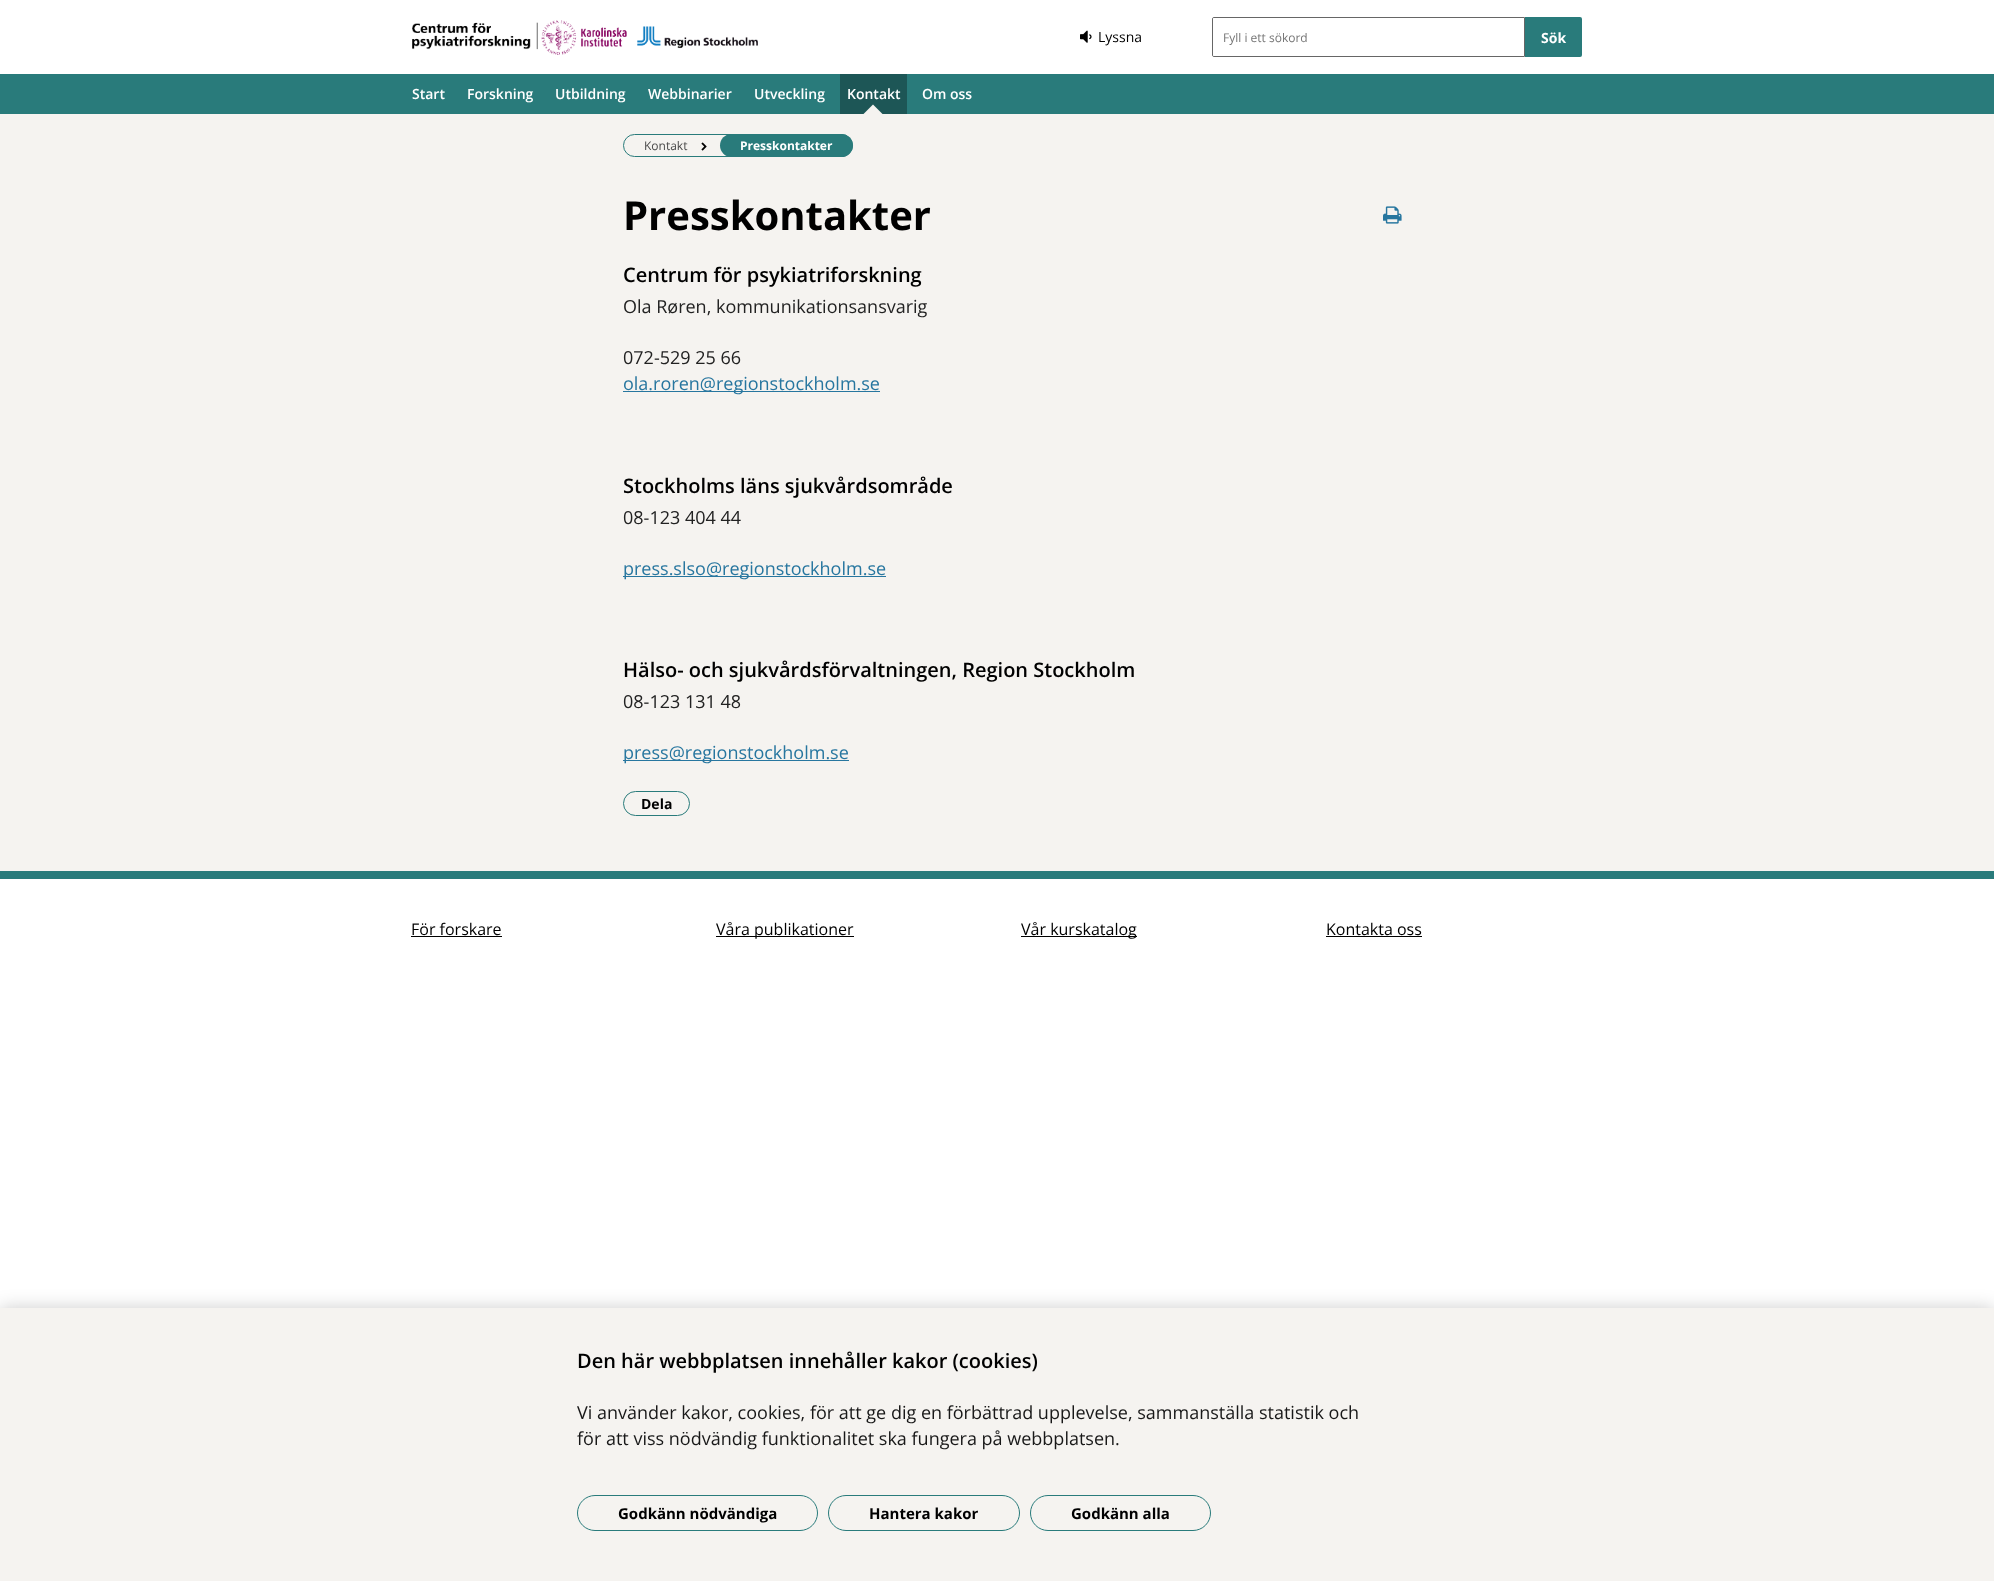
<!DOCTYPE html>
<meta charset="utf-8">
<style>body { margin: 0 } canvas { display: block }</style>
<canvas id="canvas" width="1994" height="1581"></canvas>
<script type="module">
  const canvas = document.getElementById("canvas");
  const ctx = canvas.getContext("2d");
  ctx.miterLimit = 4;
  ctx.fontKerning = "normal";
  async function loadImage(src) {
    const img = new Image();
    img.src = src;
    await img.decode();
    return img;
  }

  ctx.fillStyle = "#ffffff";
  ctx.fillRect(0, 0, 1994, 1581);
  ctx.fillStyle = "#f5f3f0";
  ctx.fillRect(0, 114, 1994, 757);
  ctx.drawImage(await loadImage("img1.png"), 412, 20, 346, 35);
  ctx.drawImage(await loadImage("img2.png"), 1080, 30, 12, 13);
  ctx.font = "14px Open Sans";
  ctx.fillStyle = "#000000";
  ctx.fillText("Lyssna", 1098, 42);
  ctx.beginPath();
  ctx.roundRect(1212.5, 17.5, 312, 39, [1.5, 0, 0, 1.5]);
  ctx.strokeStyle = "#666666";
  ctx.stroke();
  ctx.fillStyle = "#ffffff";
  ctx.beginPath();
  ctx.roundRect(1213, 18, 311, 38, [1, 0, 0, 1]);
  ctx.fill();
  ctx.font = "12px Open Sans";
  ctx.fillStyle = "#757575";
  ctx.fillText("Fyll i ett sökord", 1223, 42);
  ctx.fillStyle = "#297b7b";
  ctx.beginPath();
  ctx.roundRect(1525, 17, 57, 40, [0, 2, 2, 0]);
  ctx.fill();
  ctx.font = "bold 14px Open Sans";
  ctx.fillStyle = "#ffffff";
  ctx.fillText("Sök", 1541, 43);
  ctx.fillStyle = "#297b7b";
  ctx.fillRect(0, 74, 1994, 40);
  ctx.font = "600 14px Open Sans";
  ctx.fillStyle = "#ffffff";
  ctx.fillText("Start", 412, 99);
  ctx.fillText("Forskning", 467, 99);
  ctx.fillText("Utbildning", 555, 99);
  ctx.fillText("Webbinarier", 648, 99);
  ctx.fillText("Utveckling", 754, 99);
  ctx.fillStyle = "#1d5656";
  ctx.fillRect(840, 74, 67, 40);
  ctx.fillStyle = "#ffffff";
  ctx.fillText("Kontakt", 847, 99);
  ctx.fillStyle = "#f5f3f0";
  ctx.beginPath();
  ctx.moveTo(863, 114.5);
  ctx.lineTo(873, 104.5);
  ctx.lineTo(883, 114.5);
  ctx.closePath();
  ctx.fill();
  ctx.fillStyle = "#ffffff";
  ctx.fillText("Om oss", 922, 99);
  ctx.beginPath();
  ctx.roundRect(623.5, 134.5, 229, 22, 11);
  ctx.strokeStyle = "#297b7b";
  ctx.stroke();
  ctx.font = "12px Open Sans";
  ctx.fillStyle = "#4a4a4a";
  ctx.fillText("Kontakt", 644, 150);
  ctx.drawImage(await loadImage("img3.png"), 701, 142, 6, 9);
  ctx.fillStyle = "#297b7b";
  ctx.beginPath();
  ctx.roundRect(720, 134, 133, 23, 11.5);
  ctx.fill();
  ctx.font = "bold 12px Open Sans";
  ctx.fillStyle = "#ffffff";
  ctx.fillText("Presskontakter", 740, 150);
  ctx.font = "bold 40px Open Sans";
  ctx.fillStyle = "#000000";
  ctx.fillText("Presskontakter", 623, 230);
  ctx.drawImage(await loadImage("img4.png"), 1383, 206, 19, 18);
  ctx.font = "600 20px Open Sans";
  ctx.fillText("Centrum för psykiatriforskning", 623, 282);
  ctx.font = "18px Open Sans";
  ctx.fillStyle = "#222222";
  ctx.fillText("Ola Røren, kommunikationsansvarig", 623, 313);
  ctx.fillText("072-529 25 66", 623, 364);
  ctx.fillStyle = "#27769f";
  ctx.fillRect(623, 391, 257, 1);
  ctx.fillText("ola.roren@regionstockholm.se", 623, 390);
  ctx.font = "600 20px Open Sans";
  ctx.fillStyle = "#000000";
  ctx.fillText("Stockholms läns sjukvårdsområde", 623, 493);
  ctx.font = "18px Open Sans";
  ctx.fillStyle = "#222222";
  ctx.fillText("08-123 404 44", 623, 524);
  ctx.fillStyle = "#27769f";
  ctx.fillRect(623, 576, 263, 1);
  ctx.fillText("press.slso@regionstockholm.se", 623, 575);
  ctx.font = "600 20px Open Sans";
  ctx.fillStyle = "#000000";
  ctx.fillText("Hälso- och sjukvårdsförvaltningen, Region Stockholm", 623, 677);
  ctx.font = "18px Open Sans";
  ctx.fillStyle = "#222222";
  ctx.fillText("08-123 131 48", 623, 708);
  ctx.fillStyle = "#27769f";
  ctx.fillRect(623, 760, 226, 1);
  ctx.fillText("press@regionstockholm.se", 623, 759);
  ctx.beginPath();
  ctx.roundRect(623.5, 791.5, 66, 24, 12);
  ctx.stroke();
  ctx.font = "bold 14px Open Sans";
  ctx.fillStyle = "#000000";
  ctx.fillText("Dela", 641, 809);
  ctx.fillStyle = "#297b7b";
  ctx.fillRect(0, 871, 1994, 8);
  ctx.font = "16px Open Sans";
  ctx.fillStyle = "#000000";
  ctx.fillText("För forskare", 411, 935);
  ctx.fillRect(411, 936, 91, 1);
  ctx.fillRect(716, 936, 138, 1);
  ctx.fillText("Våra publikationer", 716, 935);
  ctx.fillRect(1021, 936, 116, 1);
  ctx.fillText("Vår kurskatalog", 1021, 935);
  ctx.fillText("Kontakta oss", 1326, 935);
  ctx.fillRect(1326, 936, 96, 1);
  ctx.fillStyle = "rgba(0, 0, 0, 0.2)";
  ctx.filter = "blur(9px)";
  ctx.beginPath();
  ctx.rect(0, 1308, 1994, 273);
  ctx.fill();
  ctx.filter = "none";
  ctx.fillStyle = "#f5f3f0";
  ctx.fillRect(0, 1308, 1994, 273);
  ctx.font = "600 20px Open Sans";
  ctx.fillStyle = "#000000";
  ctx.fillText("Den här webbplatsen innehåller kakor (cookies)", 577, 1368);
  ctx.font = "18px Open Sans";
  ctx.fillStyle = "#181818";
  ctx.fillText("Vi använder kakor, cookies, för att ge dig en förbättrad upplevelse, sammanställa statistik och", 577, 1419);
  ctx.fillText("för att viss nödvändig funktionalitet ska fungera på webbplatsen.", 577, 1445);
  ctx.beginPath();
  ctx.roundRect(577.5, 1495.5, 240, 35, 17.5);
  ctx.stroke();
  ctx.font = "bold 15px Open Sans";
  ctx.fillStyle = "#000000";
  ctx.fillText("Godkänn nödvändiga", 618, 1519);
  ctx.beginPath();
  ctx.roundRect(828.5, 1495.5, 191, 35, 17.5);
  ctx.stroke();
  ctx.fillText("Hantera kakor", 869, 1519);
  ctx.beginPath();
  ctx.roundRect(1030.5, 1495.5, 180, 35, 17.5);
  ctx.stroke();
  ctx.fillText("Godkänn alla", 1071, 1519);
</script>
